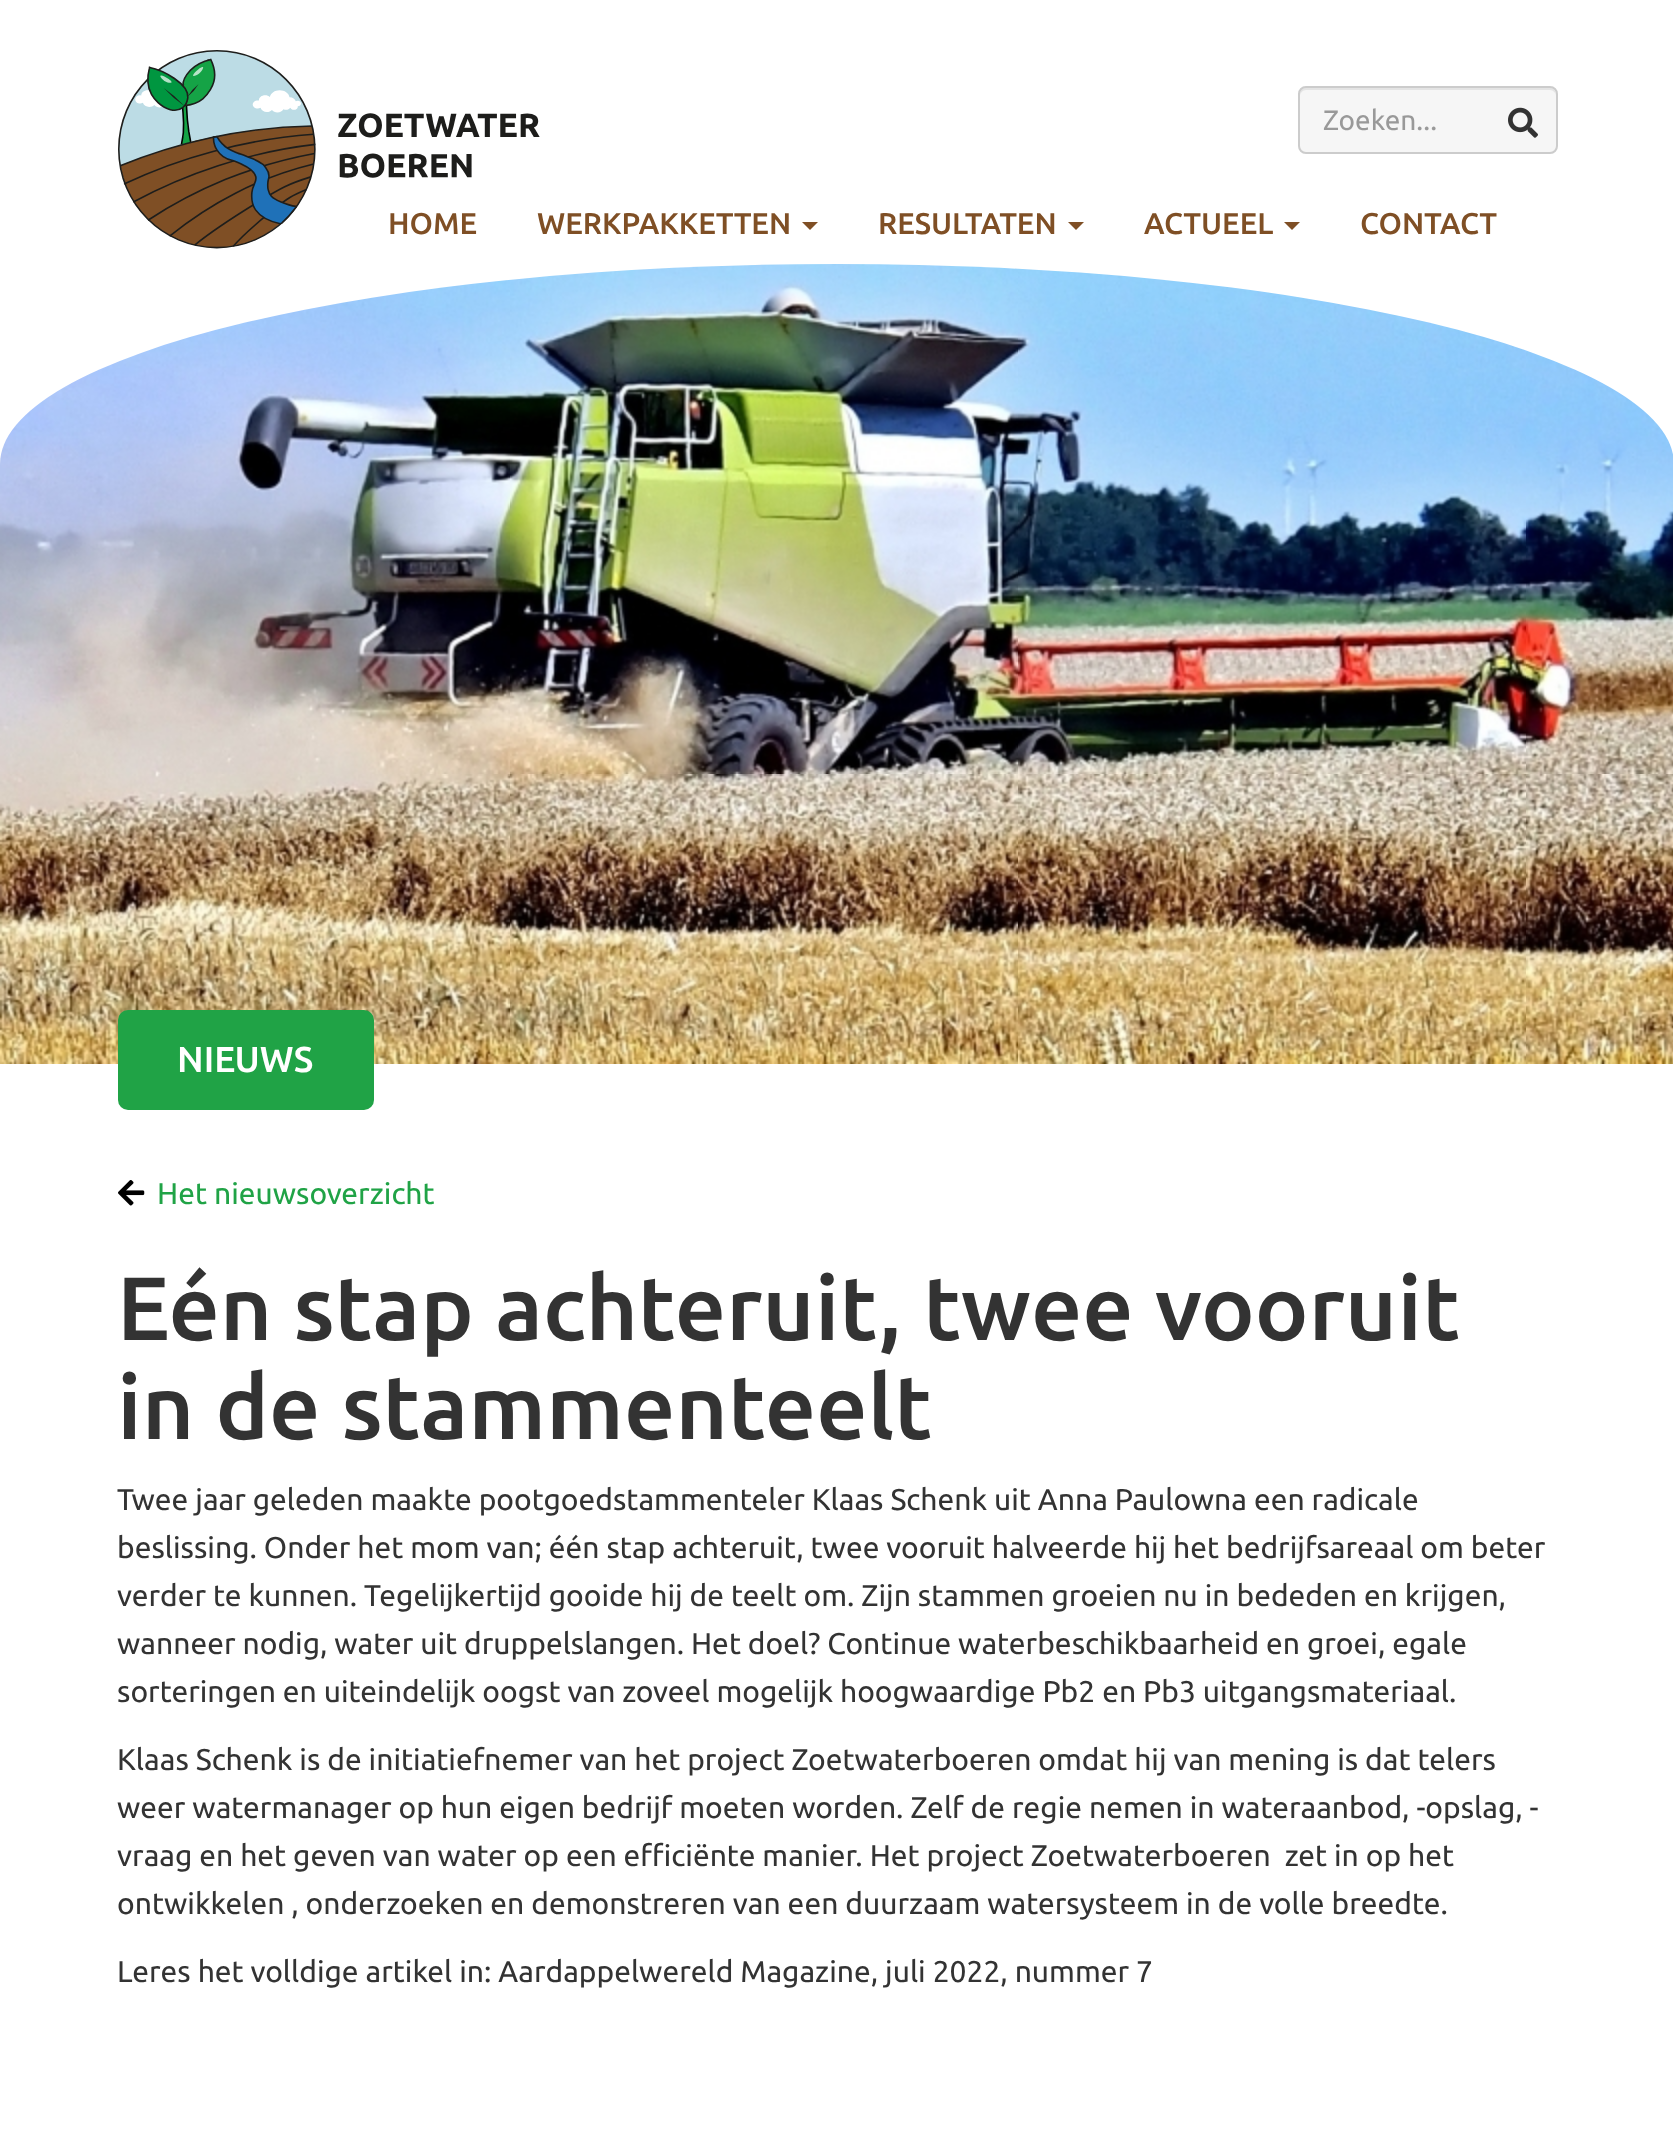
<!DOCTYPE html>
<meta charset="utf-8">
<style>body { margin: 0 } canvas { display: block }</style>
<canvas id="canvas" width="1673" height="2148"></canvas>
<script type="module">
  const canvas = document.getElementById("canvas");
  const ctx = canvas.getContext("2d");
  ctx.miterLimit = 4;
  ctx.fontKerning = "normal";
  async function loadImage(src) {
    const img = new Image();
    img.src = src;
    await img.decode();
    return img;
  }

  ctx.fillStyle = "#ffffff";
  ctx.fillRect(0, 0, 1673, 2148);
  ctx.drawImage(await loadImage("img1.png"), 118, 50, 422, 199);
  ctx.fillStyle = "#f6f6f6";
  ctx.beginPath();
  ctx.roundRect(1298, 86, 260, 68, 8);
  ctx.fill();
  ctx.fillStyle = "#e4e4e4";
  ctx.beginPath();
  ctx.moveTo(1306, 90);
  ctx.lineTo(1550, 90);
  ctx.bezierCurveTo(1553, 90, 1556, 93, 1556, 96);
  ctx.bezierCurveTo(1556, 93, 1555, 89, 1551, 88);
  ctx.lineTo(1306, 88);
  ctx.bezierCurveTo(1301, 88, 1300, 92, 1300, 96);
  ctx.bezierCurveTo(1300, 93, 1303, 90, 1306, 90);
  ctx.closePath();
  ctx.fill();
  ctx.beginPath();
  ctx.roundRect(1299, 87, 258, 66, 7);
  ctx.strokeStyle = "#cccccc";
  ctx.lineWidth = 2;
  ctx.stroke();
  ctx.font = "28px Ubuntu";
  ctx.fillStyle = "#999999";
  ctx.fillText("Zoeken...", 1323, 130);
  ctx.drawImage(await loadImage("img2.png"), 1508, 107, 30, 31);
  ctx.font = "500 30px Ubuntu";
  ctx.fillStyle = "#7f4f25";
  ctx.fillText("HOME", 388, 234);
  ctx.fillText("WERKPAKKETTEN", 537, 234);
  ctx.beginPath();
  ctx.moveTo(802, 222);
  ctx.lineTo(818, 222);
  ctx.lineTo(810, 230);
  ctx.closePath();
  ctx.fill();
  ctx.fillText("RESULTATEN", 878, 234);
  ctx.beginPath();
  ctx.moveTo(1068, 222);
  ctx.lineTo(1084, 222);
  ctx.lineTo(1076, 230);
  ctx.closePath();
  ctx.fill();
  ctx.fillText("ACTUEEL", 1144, 234);
  ctx.beginPath();
  ctx.moveTo(1284, 222);
  ctx.lineTo(1300, 222);
  ctx.lineTo(1292, 230);
  ctx.closePath();
  ctx.fill();
  ctx.fillText("CONTACT", 1360, 234);
  ctx.drawImage(await loadImage("img3.png"), 0, 264, 1673, 800);
  ctx.fillStyle = "#20a346";
  ctx.beginPath();
  ctx.roundRect(118, 1010, 256, 100, 10);
  ctx.fill();
  ctx.font = "500 36px Ubuntu";
  ctx.fillStyle = "#ffffff";
  ctx.fillText("NIEUWS", 177, 1072);
  ctx.drawImage(await loadImage("img4.png"), 118, 1180, 27, 26);
  ctx.font = "30px Ubuntu";
  ctx.fillStyle = "#20a346";
  ctx.fillText("Het nieuwsoverzicht", 157, 1204);
  ctx.font = "500 90px Ubuntu";
  ctx.fillStyle = "#333333";
  ctx.fillText("Eén stap achteruit, twee vooruit", 117, 1340);
  ctx.fillText("in de stammenteelt", 117, 1439);
  ctx.font = "30px Ubuntu";
  ctx.fillText("Twee jaar geleden maakte pootgoedstammenteler Klaas Schenk uit Anna Paulowna een radicale", 117, 1510);
  ctx.fillText("beslissing. Onder het mom van; één stap achteruit, twee vooruit halveerde hij het bedrijfsareaal om beter", 117, 1558);
  ctx.fillText("verder te kunnen. Tegelijkertijd gooide hij de teelt om. Zijn stammen groeien nu in bededen en krijgen,", 117, 1606);
  ctx.fillText("wanneer nodig, water uit druppelslangen. Het doel? Continue waterbeschikbaarheid en groei, egale", 117, 1654);
  ctx.fillText("sorteringen en uiteindelijk oogst van zoveel mogelijk hoogwaardige Pb2 en Pb3 uitgangsmateriaal.", 117, 1702);
  ctx.fillText("Klaas Schenk is de initiatiefnemer van het project Zoetwaterboeren omdat hij van mening is dat telers", 117, 1770);
  ctx.fillText("weer watermanager op hun eigen bedrijf moeten worden. Zelf de regie nemen in wateraanbod, -opslag, -", 117, 1818);
  ctx.fillText("vraag en het geven van water op een efficiënte manier. Het project Zoetwaterboeren  zet in op het", 117, 1866);
  ctx.fillText("ontwikkelen , onderzoeken en demonstreren van een duurzaam watersysteem in de volle breedte.", 117, 1914);
  ctx.fillText("Leres het volldige artikel in: Aardappelwereld Magazine, juli 2022, nummer 7", 117, 1982);
</script>
